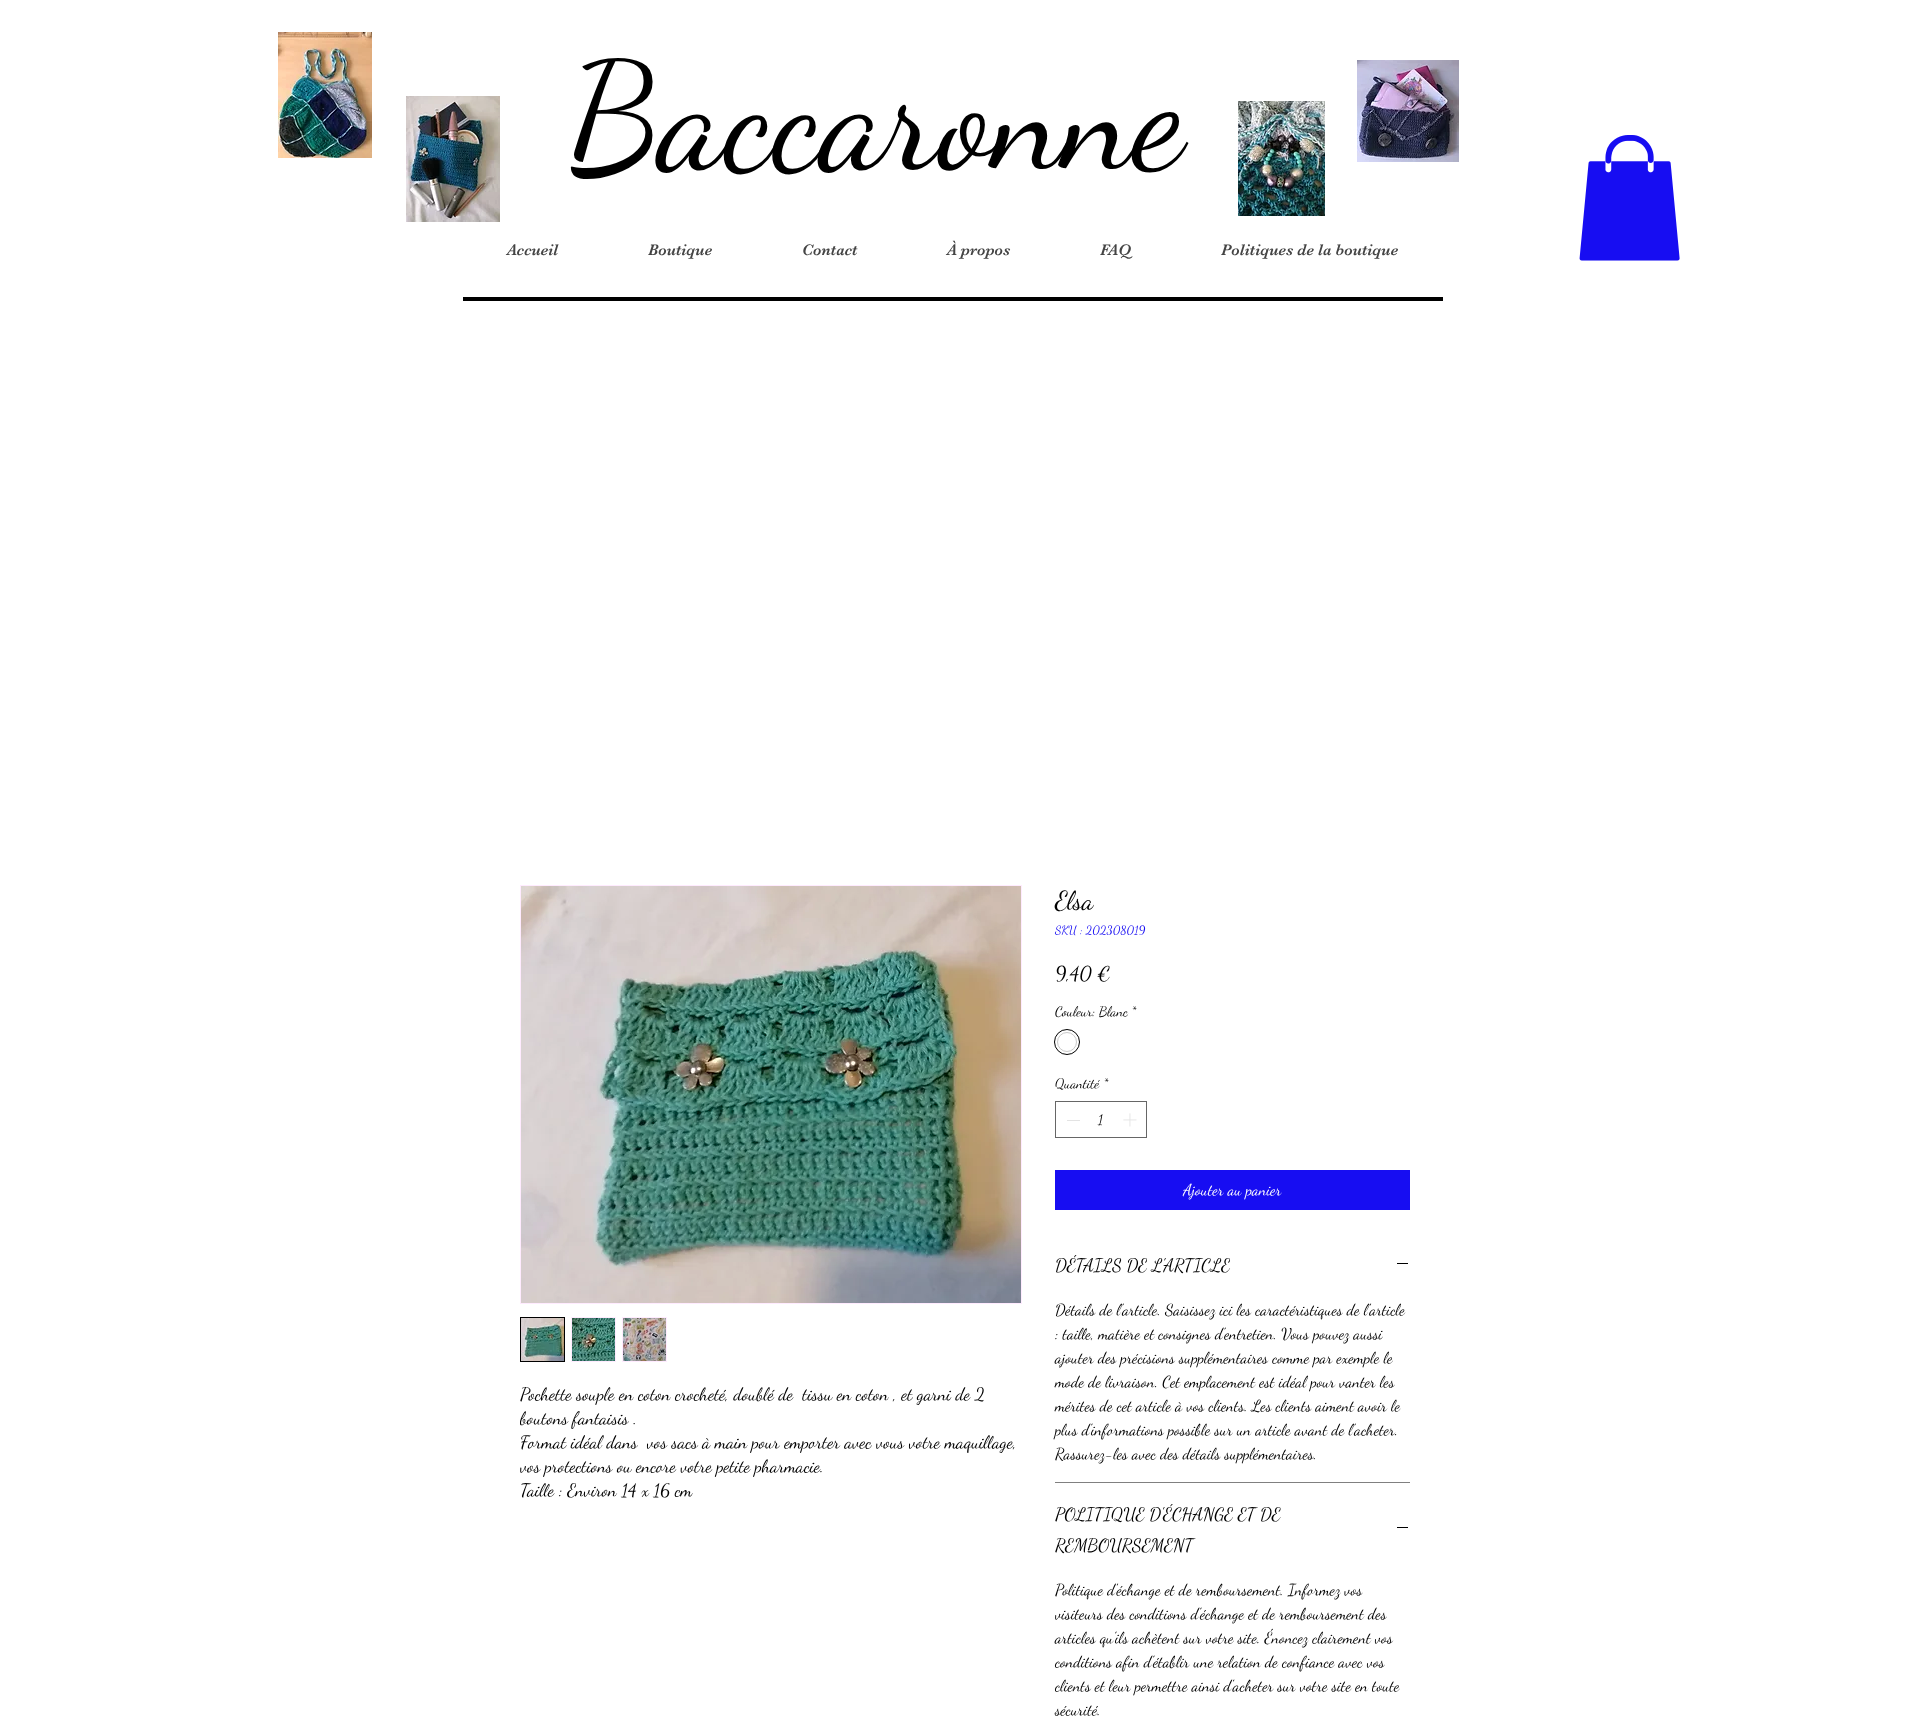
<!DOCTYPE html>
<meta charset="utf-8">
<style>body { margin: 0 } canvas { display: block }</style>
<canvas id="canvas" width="1929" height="1730"></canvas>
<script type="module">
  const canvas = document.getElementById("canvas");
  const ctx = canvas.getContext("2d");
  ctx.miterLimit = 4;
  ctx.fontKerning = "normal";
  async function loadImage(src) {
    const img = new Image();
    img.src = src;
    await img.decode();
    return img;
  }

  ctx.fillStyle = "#ffffff";
  ctx.fillRect(0, 0, 1929, 1730);
  ctx.drawImage(await loadImage("img1.png"), 278, 32, 94, 126);
  ctx.drawImage(await loadImage("img2.png"), 406, 96, 94, 126);
  ctx.font = "150px Dancing Script";
  ctx.fillStyle = "#000000";
  ctx.fillText("Baccaronne", 568, 166);
  ctx.drawImage(await loadImage("img3.png"), 1238, 101, 87, 115);
  ctx.drawImage(await loadImage("img4.png"), 1357, 60, 102, 102);
  ctx.drawImage(await loadImage("img5.png"), 1579, 135, 101, 126);
  ctx.fillRect(463, 297, 980, 4);
  ctx.font = "16px 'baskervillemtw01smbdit'";
  ctx.fillStyle = "#444444";
  ctx.fillText("Accueil", 507, 255);
  ctx.fillText("Boutique", 648, 255);
  ctx.fillText("Contact", 802, 255);
  ctx.fillText("À propos", 947, 255);
  ctx.fillText("FAQ", 1100, 255);
  ctx.fillText("Politiques de la boutique", 1221, 255);
  ctx.strokeStyle = "#ffebff";
  ctx.strokeRect(520.5, 885.5, 501, 418);
  ctx.drawImage(await loadImage("img6.png"), 521, 886, 500, 417);
  ctx.strokeStyle = "#000000";
  ctx.strokeRect(520.5, 1317.5, 44, 44);
  ctx.drawImage(await loadImage("img7.png"), 521, 1318, 43, 43);
  ctx.fillStyle = "#ffebff";
  ctx.fillRect(571, 1317, 45, 45);
  ctx.drawImage(await loadImage("img8.png"), 572, 1318, 43, 43);
  ctx.fillRect(622, 1317, 45, 45);
  ctx.drawImage(await loadImage("img9.png"), 623, 1318, 43, 43);
  ctx.font = "18px Dancing Script";
  ctx.fillStyle = "#000000";
  ctx.fillText("Pochette souple en coton crocheté, doublé de  tissu en coton , et garni de 2", 520, 1400);
  ctx.save();
  ctx.beginPath();
  ctx.rect(520, 1382, 500, 120);
  ctx.clip();
  ctx.fillText("boutons fantaisis .", 520, 1424);
  ctx.restore();
  ctx.fillText("Format idéal dans  vos sacs à main pour emporter avec vous votre maquillage,", 520, 1448);
  ctx.save();
  ctx.beginPath();
  ctx.rect(520, 1382, 500, 120);
  ctx.clip();
  ctx.fillText("vos protections ou encore votre petite pharmacie.", 520, 1472);
  ctx.restore();
  ctx.fillText("Taille : Environ 14 x 16 cm", 520, 1496);
  ctx.font = "26px Dancing Script";
  ctx.fillText("Elsa", 1055, 909);
  ctx.font = "12px Dancing Script";
  ctx.fillStyle = "#170df2";
  ctx.fillText("SKU : 202308019", 1055, 934);
  ctx.font = "20px Dancing Script";
  ctx.fillStyle = "#000000";
  ctx.fillText("9,40 €", 1055, 980);
  ctx.font = "14px Dancing Script";
  ctx.fillText("Couleur: Blanc", 1055, 1016);
  ctx.fillText("*", 1131, 1016);
  ctx.beginPath();
  ctx.arc(1067, 1042, 12.5, 0, Math.PI * 2);
  ctx.stroke();
  ctx.beginPath();
  ctx.arc(1067, 1042, 9.5, 0, Math.PI * 2);
  ctx.strokeStyle = "#c9c9c9";
  ctx.stroke();
  ctx.fillText("Quantité", 1055, 1088);
  ctx.fillText("*", 1103, 1088);
  ctx.strokeStyle = "#666666";
  ctx.strokeRect(1055.5, 1101.5, 91, 36);
  ctx.fillStyle = "#e3e3e3";
  ctx.fillRect(1067, 1120, 13, 1);
  ctx.fillStyle = "#000000";
  ctx.fillText("1", 1098, 1124);
  ctx.drawImage(await loadImage("img10.png"), 1123, 1113, 14, 14);
  ctx.fillStyle = "#170df2";
  ctx.fillRect(1055, 1170, 355, 40);
  ctx.font = "16px Dancing Script";
  ctx.fillStyle = "#ffffff";
  ctx.fillText("Ajouter au panier", 1183, 1195);
  ctx.fillStyle = "#808080";
  ctx.fillRect(1055, 1482, 355, 1);
  ctx.font = "18px Dancing Script";
  ctx.fillStyle = "#000000";
  ctx.fillText("DÉTAILS DE L'ARTICLE", 1055, 1271);
  ctx.fillRect(1397, 1263, 11, 1);
  ctx.font = "16px Dancing Script";
  ctx.fillText("Détails de l'article. Saisissez ici les caractéristiques de l'article", 1055, 1315);
  ctx.fillText(": taille, matière et consignes d'entretien. Vous pouvez aussi", 1055, 1339);
  ctx.fillText("ajouter des précisions supplémentaires comme par exemple le", 1055, 1363);
  ctx.fillText("mode de livraison. Cet emplacement est idéal pour vanter les", 1055, 1387);
  ctx.fillText("mérites de cet article à vos clients. Les clients aiment avoir le", 1055, 1411);
  ctx.fillText("plus d'informations possible sur un article avant de l'acheter.", 1055, 1435);
  ctx.fillText("Rassurez-les avec des détails supplémentaires.", 1055, 1459);
  ctx.font = "18px Dancing Script";
  ctx.fillText("POLITIQUE D'ÉCHANGE ET DE", 1055, 1520);
  ctx.fillText("REMBOURSEMENT", 1055, 1551);
  ctx.fillRect(1397, 1527, 11, 1);
  ctx.font = "16px Dancing Script";
  ctx.fillText("Politique d'échange et de remboursement. Informez vos", 1055, 1595);
  ctx.fillText("visiteurs des conditions d'échange et de remboursement des", 1055, 1619);
  ctx.fillText("articles qu'ils achètent sur votre site. Énoncez clairement vos", 1055, 1643);
  ctx.fillText("conditions afin d'établir une relation de confiance avec vos", 1055, 1667);
  ctx.fillText("clients et leur permettre ainsi d'acheter sur votre site en toute", 1055, 1691);
  ctx.fillText("sécurité.", 1055, 1715);
</script>
